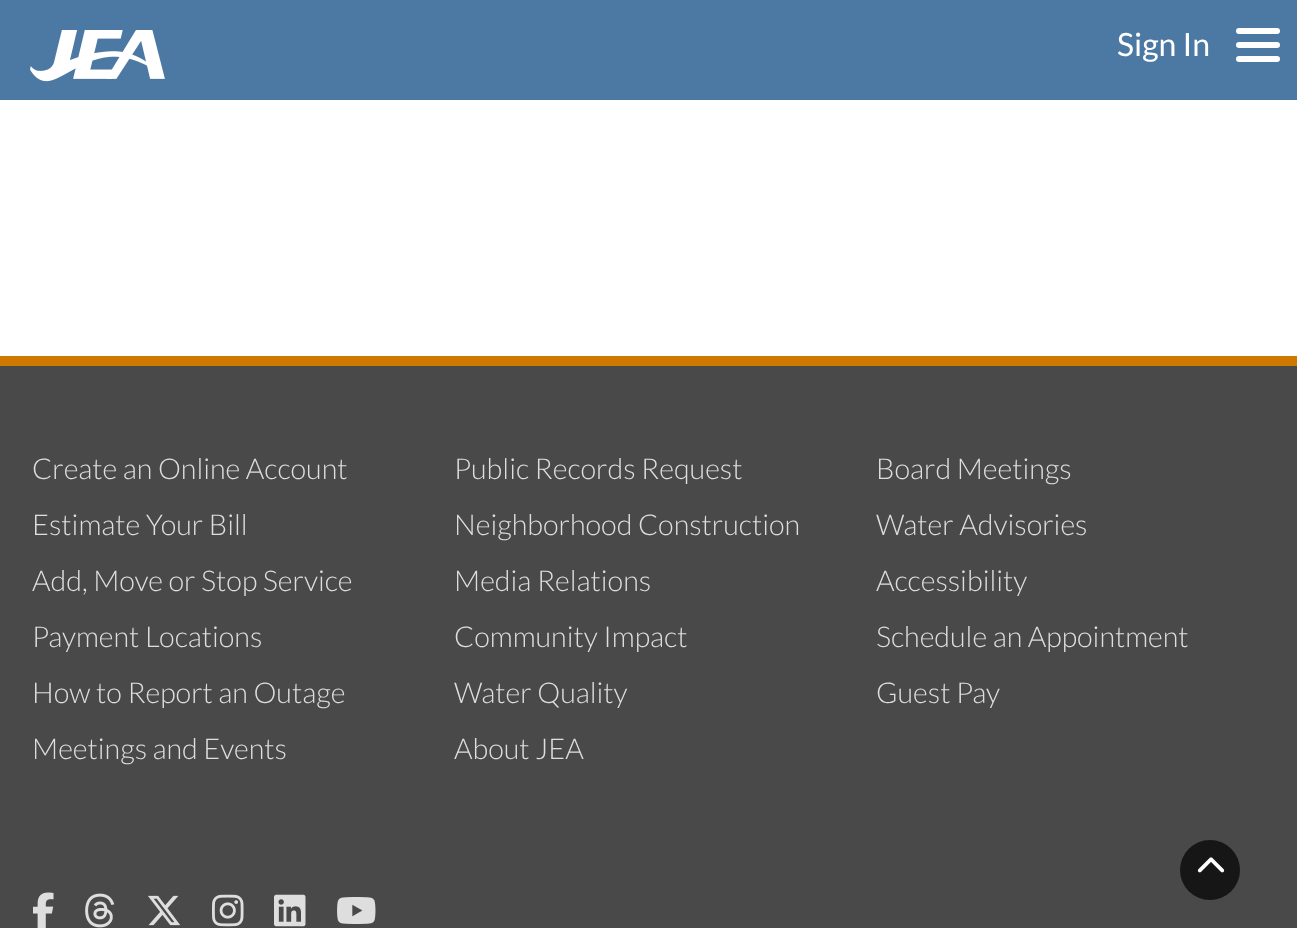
<!DOCTYPE html>
<meta charset="utf-8">
<style>body { margin: 0 } canvas { display: block }</style>
<canvas id="canvas" width="1297" height="928"></canvas>
<script type="module">
  const canvas = document.getElementById("canvas");
  const ctx = canvas.getContext("2d");
  ctx.miterLimit = 4;
  ctx.fontKerning = "normal";
  async function loadImage(src) {
    const img = new Image();
    img.src = src;
    await img.decode();
    return img;
  }

  ctx.fillStyle = "#ffffff";
  ctx.fillRect(0, 0, 1297, 928);
  ctx.fillStyle = "#4c79a4";
  ctx.fillRect(0, 0, 1297, 100);
  ctx.drawImage(await loadImage("img1.png"), 30, 30, 135, 52);
  ctx.font = "32px Lato";
  ctx.fillStyle = "#ffffff";
  ctx.fillText("Sign In", 1117, 56);
  ctx.beginPath();
  ctx.roundRect(1236, 42, 44, 6, 3);
  ctx.fill();
  ctx.beginPath();
  ctx.roundRect(1236, 28, 44, 6, 3);
  ctx.fill();
  ctx.beginPath();
  ctx.roundRect(1236, 56, 44, 6, 3);
  ctx.fill();
  ctx.fillStyle = "#494949";
  ctx.fillRect(0, 366, 1297, 562);
  ctx.fillStyle = "#cf7800";
  ctx.fillRect(0, 356, 1297, 10);
  ctx.font = "300 28.75px Lato";
  ctx.fillStyle = "#dedede";
  ctx.fillText("Create an Online Account", 32, 479);
  ctx.fillText("Public Records Request", 454, 479);
  ctx.fillText("Board Meetings", 876, 479);
  ctx.fillText("Estimate Your Bill", 32, 535);
  ctx.fillText("Neighborhood Construction", 454, 535);
  ctx.fillText("Water Advisories", 876, 535);
  ctx.fillText("Add, Move or Stop Service", 32, 591);
  ctx.fillText("Media Relations", 454, 591);
  ctx.fillText("Accessibility", 876, 591);
  ctx.fillText("Payment Locations", 32, 647);
  ctx.fillText("Community Impact", 454, 647);
  ctx.fillText("Schedule an Appointment", 876, 647);
  ctx.fillText("How to Report an Outage", 32, 703);
  ctx.fillText("Water Quality", 454, 703);
  ctx.fillText("Guest Pay", 876, 703);
  ctx.fillText("Meetings and Events", 32, 759);
  ctx.fillText("About JEA", 454, 759);
  ctx.drawImage(await loadImage("img2.png"), 33, 892, 21, 36);
  ctx.drawImage(await loadImage("img3.png"), 85, 893, 30, 35);
  ctx.drawImage(await loadImage("img4.png"), 148, 895, 33, 31);
  ctx.drawImage(await loadImage("img5.png"), 212, 894, 32, 33);
  ctx.drawImage(await loadImage("img6.png"), 274, 894, 32, 33);
  ctx.drawImage(await loadImage("img7.png"), 337, 897, 39, 27);
  ctx.fillStyle = "#161616";
  ctx.beginPath();
  ctx.arc(1210, 870, 30, 0, Math.PI * 2);
  ctx.fill();
  ctx.drawImage(await loadImage("img8.png"), 1197, 857, 28, 16);
</script>
